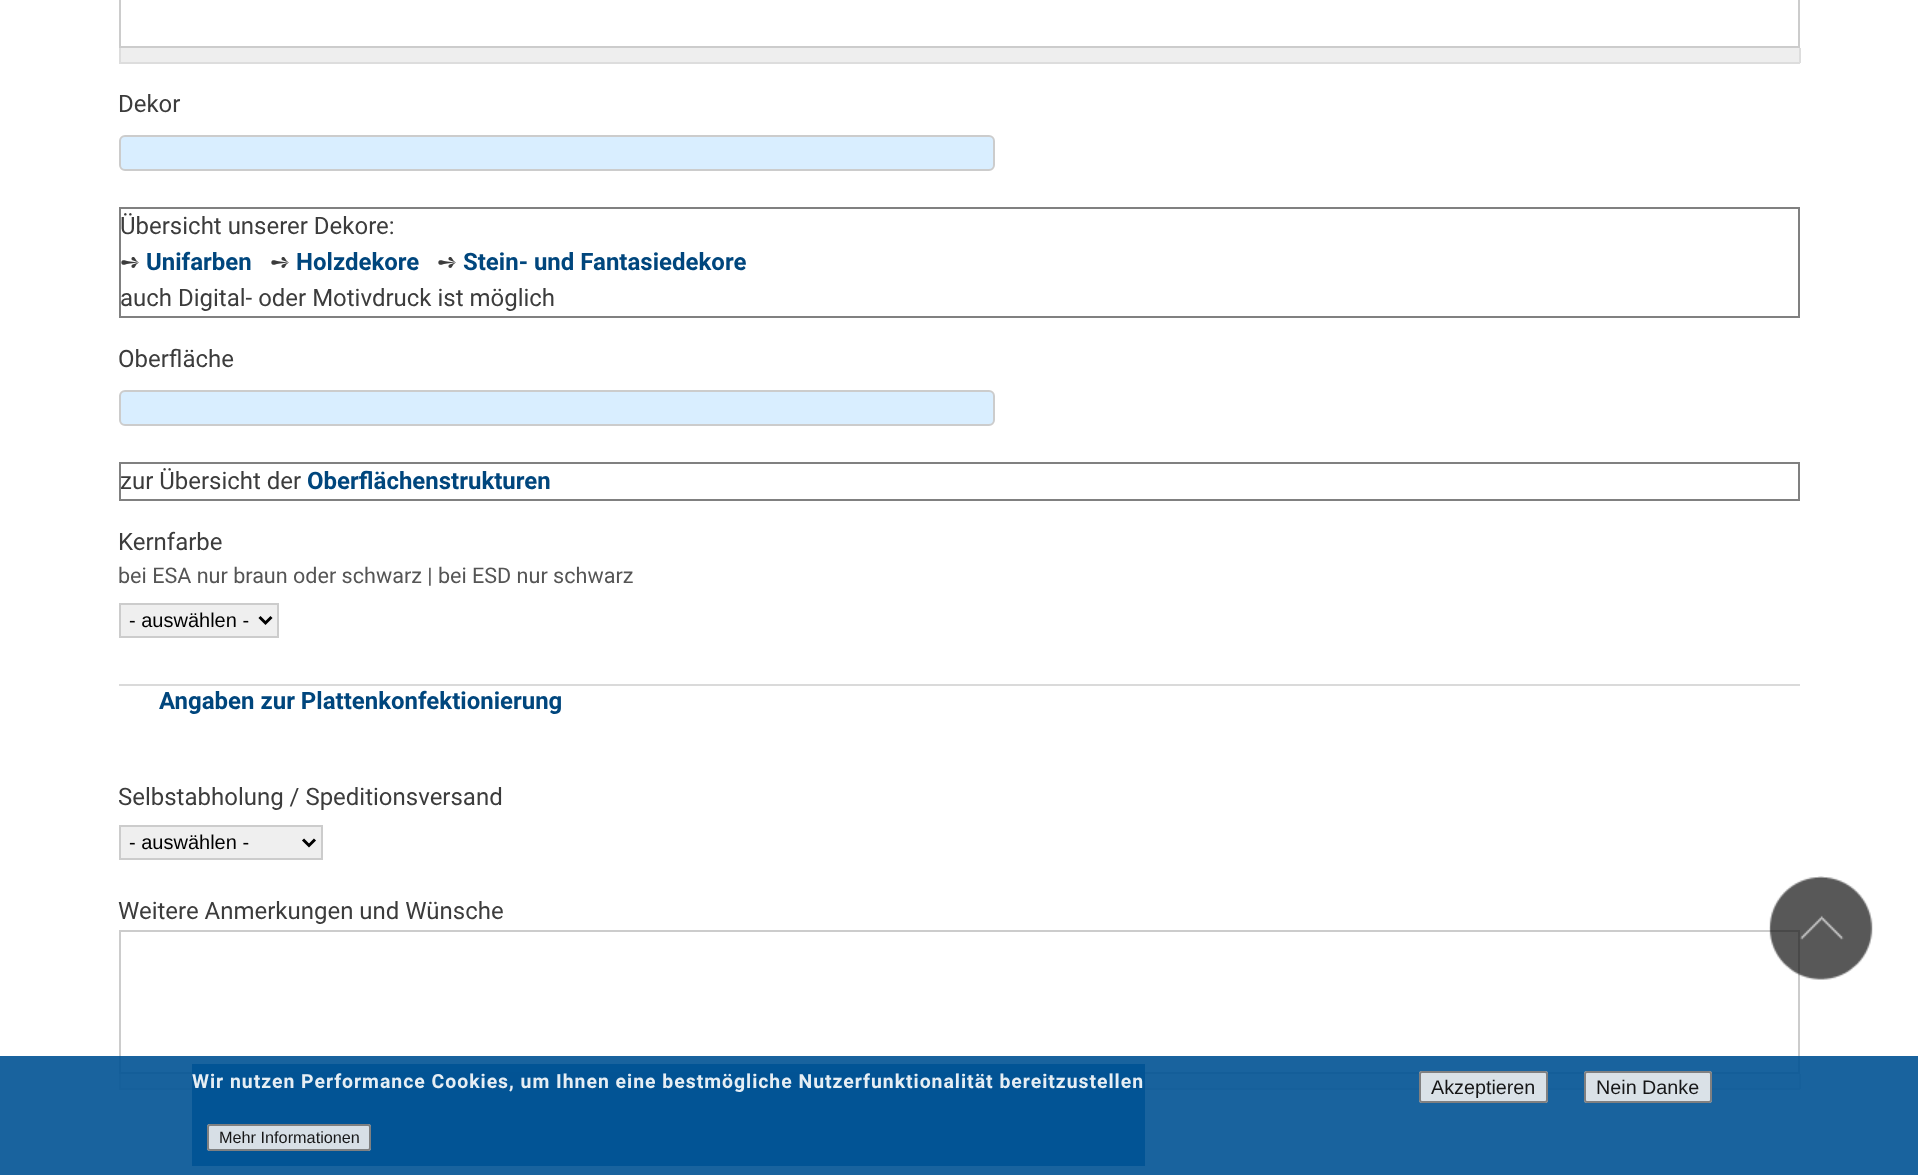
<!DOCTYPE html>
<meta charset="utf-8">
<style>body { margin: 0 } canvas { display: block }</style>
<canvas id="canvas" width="1918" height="1175"></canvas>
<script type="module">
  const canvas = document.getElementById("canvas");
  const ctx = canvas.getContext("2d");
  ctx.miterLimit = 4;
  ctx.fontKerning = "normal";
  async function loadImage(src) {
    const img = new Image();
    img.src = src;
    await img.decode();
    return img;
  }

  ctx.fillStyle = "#ffffff";
  ctx.fillRect(0, 0, 1918, 1175);
  ctx.strokeStyle = "#cccccc";
  ctx.lineWidth = 2;
  ctx.strokeRect(120, -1, 1679, 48);
  ctx.fillStyle = "#eeeeee";
  ctx.fillRect(121, 48, 1678, 14);
  ctx.fillStyle = "#dddddd";
  ctx.fillRect(1799, 48, 2, 15);
  ctx.fillRect(119, 62, 1681, 2);
  ctx.fillRect(119, 48, 2, 15);
  ctx.font = "24px Roboto";
  ctx.fillStyle = "#3c3c3c";
  ctx.fillText("Dekor", 118, 112);
  ctx.fillStyle = "#d9eeff";
  ctx.beginPath();
  ctx.roundRect(120, 136, 874, 34, 5);
  ctx.fill();
  ctx.stroke();
  ctx.strokeStyle = "#808080";
  ctx.strokeRect(120, 208, 1679, 109);
  ctx.fillStyle = "#3c3c3c";
  ctx.fillText("Übersicht unserer Dekore:", 120, 234);
  ctx.font = "24px DejaVu Sans";
  ctx.fillText("➺", 120, 270);
  ctx.font = "bold 24px Roboto";
  ctx.fillStyle = "#00467d";
  ctx.fillText("Unifarben", 146, 270);
  ctx.font = "24px DejaVu Sans";
  ctx.fillStyle = "#3c3c3c";
  ctx.fillText("➺", 270, 270);
  ctx.font = "bold 24px Roboto";
  ctx.fillStyle = "#00467d";
  ctx.fillText("Holzdekore", 296, 270);
  ctx.font = "24px DejaVu Sans";
  ctx.fillStyle = "#3c3c3c";
  ctx.fillText("➺", 437, 270);
  ctx.font = "bold 24px Roboto";
  ctx.fillStyle = "#00467d";
  ctx.fillText("Stein- und Fantasiedekore", 463, 270);
  ctx.font = "24px Roboto";
  ctx.fillStyle = "#3c3c3c";
  ctx.fillText("auch Digital- oder Motivdruck ist möglich", 120, 306);
  ctx.fillText("Oberfläche", 118, 367);
  ctx.fillStyle = "#d9eeff";
  ctx.beginPath();
  ctx.roundRect(120, 391, 874, 34, 5);
  ctx.fill();
  ctx.strokeStyle = "#cccccc";
  ctx.stroke();
  ctx.strokeStyle = "#808080";
  ctx.strokeRect(120, 463, 1679, 37);
  ctx.fillStyle = "#3c3c3c";
  ctx.fillText("zur Übersicht der", 120, 489);
  ctx.font = "bold 24px Roboto";
  ctx.fillStyle = "#00467d";
  ctx.fillText("Oberflächenstrukturen", 307, 489);
  ctx.font = "24px Roboto";
  ctx.fillStyle = "#3c3c3c";
  ctx.fillText("Kernfarbe", 118, 550);
  ctx.font = "21.6px Roboto";
  ctx.fillStyle = "#555555";
  ctx.fillText("bei ESA nur braun oder schwarz | bei ESD nur schwarz", 118, 583);
  ctx.fillStyle = "#efefef";
  ctx.beginPath();
  ctx.rect(120, 604, 158, 33);
  ctx.fill();
  ctx.strokeStyle = "#cccccc";
  ctx.stroke();
  ctx.beginPath();
  ctx.moveTo(259.5, 617);
  ctx.lineTo(265.5, 623);
  ctx.lineTo(271.5, 617);
  ctx.strokeStyle = "#000000";
  ctx.lineWidth = 3;
  ctx.stroke();
  ctx.font = "20px Liberation Sans";
  ctx.fillStyle = "#000000";
  ctx.fillText("- auswählen -", 129, 627);
  ctx.fillStyle = "#dadada";
  ctx.fillRect(119, 684, 1681, 2);
  ctx.font = "bold 24px Roboto";
  ctx.fillStyle = "#00467d";
  ctx.fillText("Angaben zur Plattenkonfektionierung", 159, 709);
  ctx.font = "24px Roboto";
  ctx.fillStyle = "#3c3c3c";
  ctx.fillText("Selbstabholung / Speditionsversand", 118, 805);
  ctx.fillStyle = "#efefef";
  ctx.beginPath();
  ctx.rect(120, 826, 202, 33);
  ctx.fill();
  ctx.strokeStyle = "#cccccc";
  ctx.lineWidth = 2;
  ctx.stroke();
  ctx.beginPath();
  ctx.moveTo(303, 839.5);
  ctx.lineTo(309, 845.5);
  ctx.lineTo(315, 839.5);
  ctx.strokeStyle = "#000000";
  ctx.lineWidth = 3;
  ctx.stroke();
  ctx.font = "20px Liberation Sans";
  ctx.fillStyle = "#000000";
  ctx.fillText("- auswählen -", 129, 849);
  ctx.font = "24px Roboto";
  ctx.fillStyle = "#3c3c3c";
  ctx.fillText("Weitere Anmerkungen und Wünsche", 118, 919);
  ctx.strokeStyle = "#cccccc";
  ctx.lineWidth = 2;
  ctx.strokeRect(120, 931, 1679, 142);
  ctx.fillStyle = "#eeeeee";
  ctx.fillRect(121, 1074, 1678, 14);
  ctx.fillStyle = "#dddddd";
  ctx.fillRect(1799, 1074, 2, 15);
  ctx.fillRect(119, 1088, 1681, 2);
  ctx.fillRect(119, 1074, 2, 15);
  ctx.drawImage(await loadImage("img1.png"), 1769, 876, 104, 104);
  ctx.fillStyle = "rgba(0, 82, 147, 0.9)";
  ctx.fillRect(0, 1056, 1918, 119);
  ctx.fillRect(192, 1064, 953, 102);
  ctx.letterSpacing = "0.97px";
  ctx.font = "bold 19.45px Roboto";
  ctx.fillStyle = "#e6eef4";
  ctx.fillText("Wir nutzen Performance Cookies, um Ihnen eine bestmögliche Nutzerfunktionalität bereitzustellen", 192, 1088);
  ctx.fillStyle = "#d7dfe6";
  ctx.beginPath();
  ctx.roundRect(207, 1124, 164, 27, 3);
  ctx.fill();
  ctx.beginPath();
  ctx.roundRect(208, 1125, 162, 25, 2);
  ctx.strokeStyle = "rgba(118, 118, 118, 0.9)";
  ctx.stroke();
  ctx.letterSpacing = "0px";
  ctx.font = "16.25px Liberation Sans";
  ctx.fillStyle = "#161617";
  ctx.fillText("Mehr Informationen", 219, 1143);
  ctx.fillStyle = "rgba(239, 239, 239, 0.9)";
  ctx.beginPath();
  ctx.roundRect(1419, 1071, 129, 32, 3);
  ctx.fill();
  ctx.beginPath();
  ctx.roundRect(1420, 1072, 127, 30, 2);
  ctx.stroke();
  ctx.font = "19.75px Liberation Sans";
  ctx.fillStyle = "#161617";
  ctx.fillText("Akzeptieren", 1431, 1094);
  ctx.fillStyle = "rgba(239, 239, 239, 0.9)";
  ctx.beginPath();
  ctx.roundRect(1584, 1071, 128, 32, 3);
  ctx.fill();
  ctx.beginPath();
  ctx.roundRect(1585, 1072, 126, 30, 2);
  ctx.stroke();
  ctx.fillStyle = "#161617";
  ctx.fillText("Nein Danke", 1596, 1094);
</script>
